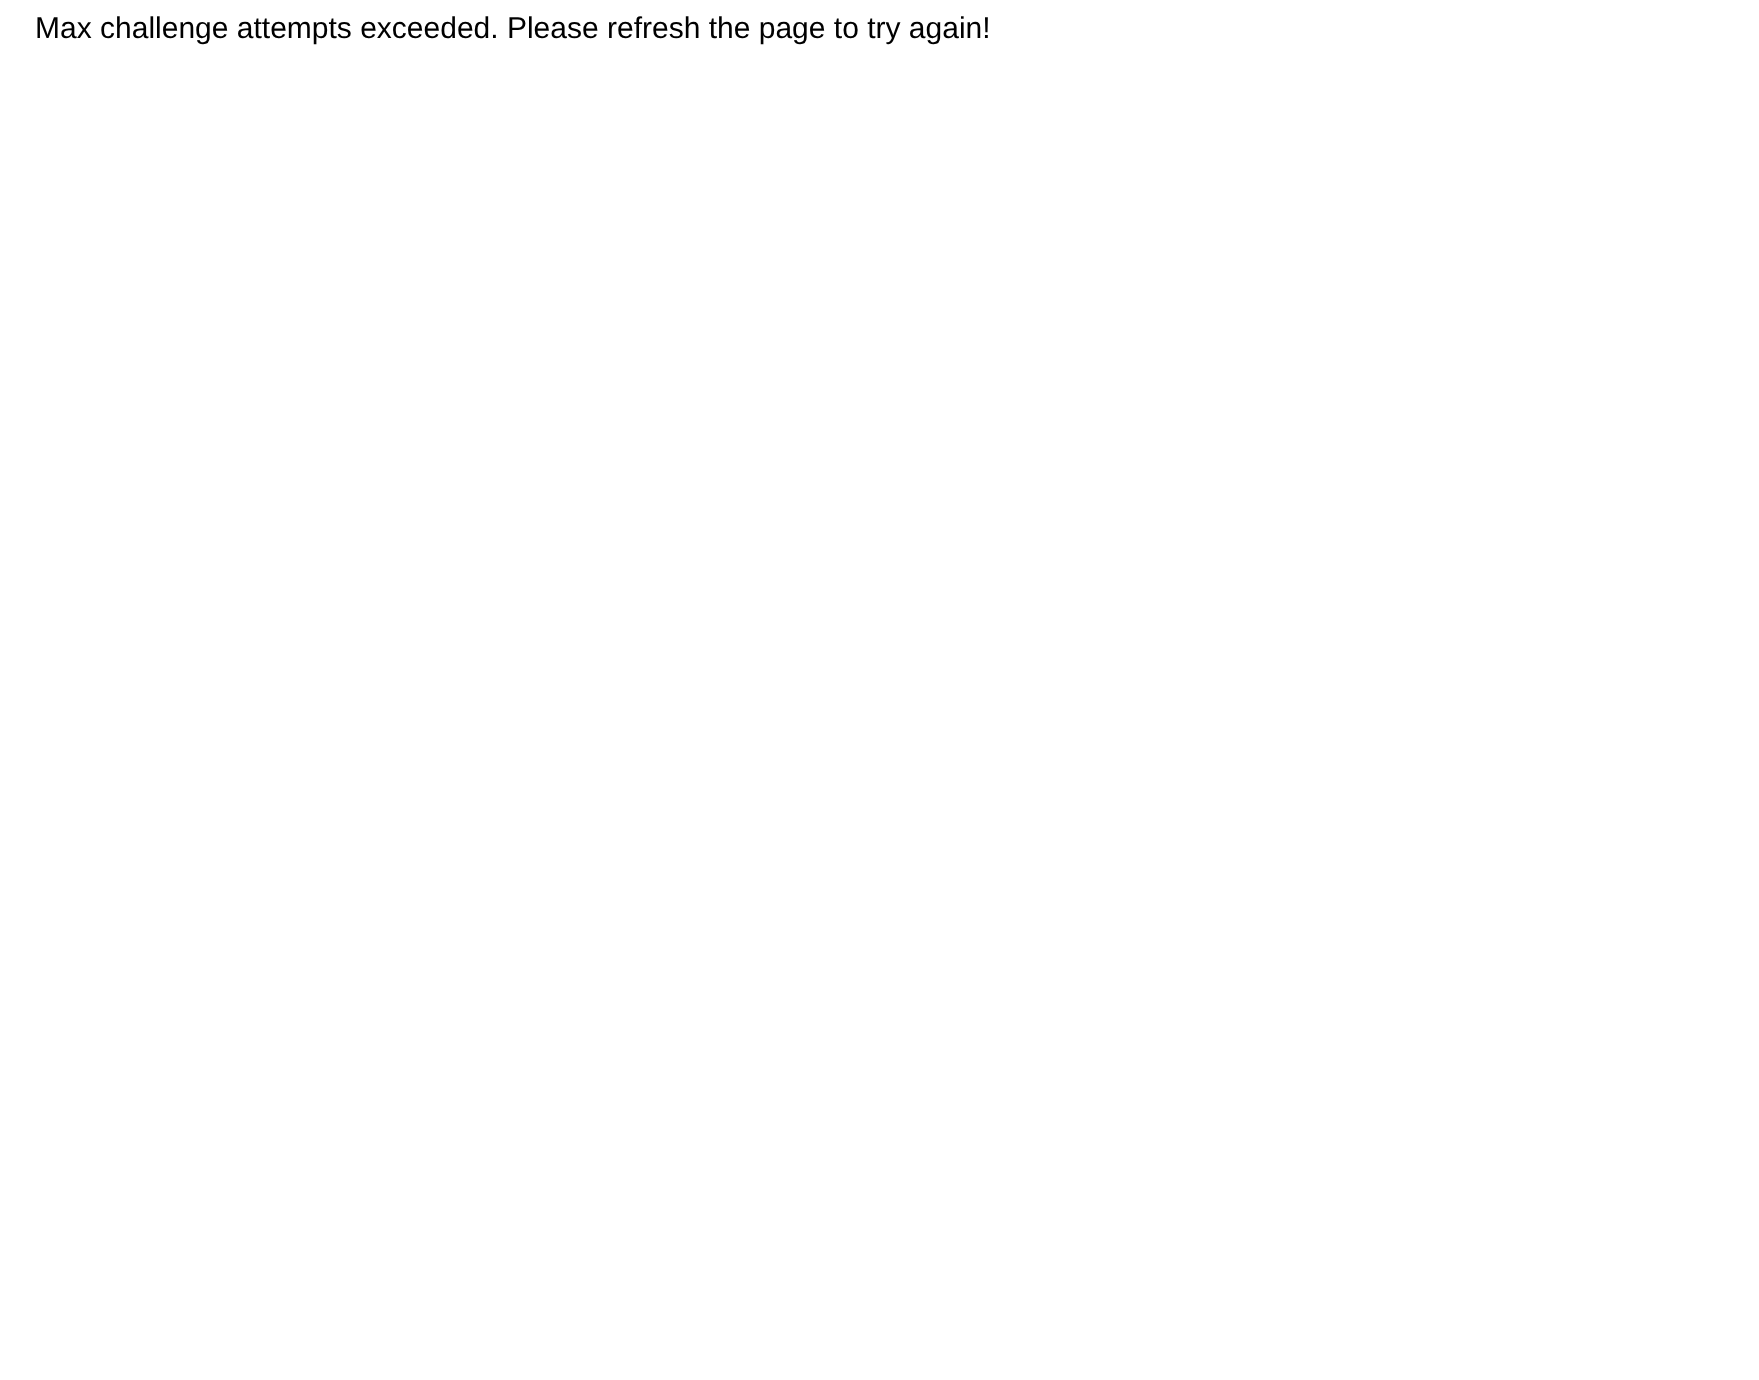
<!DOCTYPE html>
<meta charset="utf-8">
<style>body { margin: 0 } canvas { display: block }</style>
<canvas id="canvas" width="1759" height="1380"></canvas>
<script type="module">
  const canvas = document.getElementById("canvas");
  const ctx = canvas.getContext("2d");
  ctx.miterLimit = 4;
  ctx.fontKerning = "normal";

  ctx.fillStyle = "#ffffff";
  ctx.fillRect(0, 0, 1759, 1380);
  ctx.font = "30px Liberation Sans";
  ctx.fillStyle = "#000000";
  ctx.fillText("Max challenge attempts exceeded. Please refresh the page to try again!", 35, 38);
</script>
